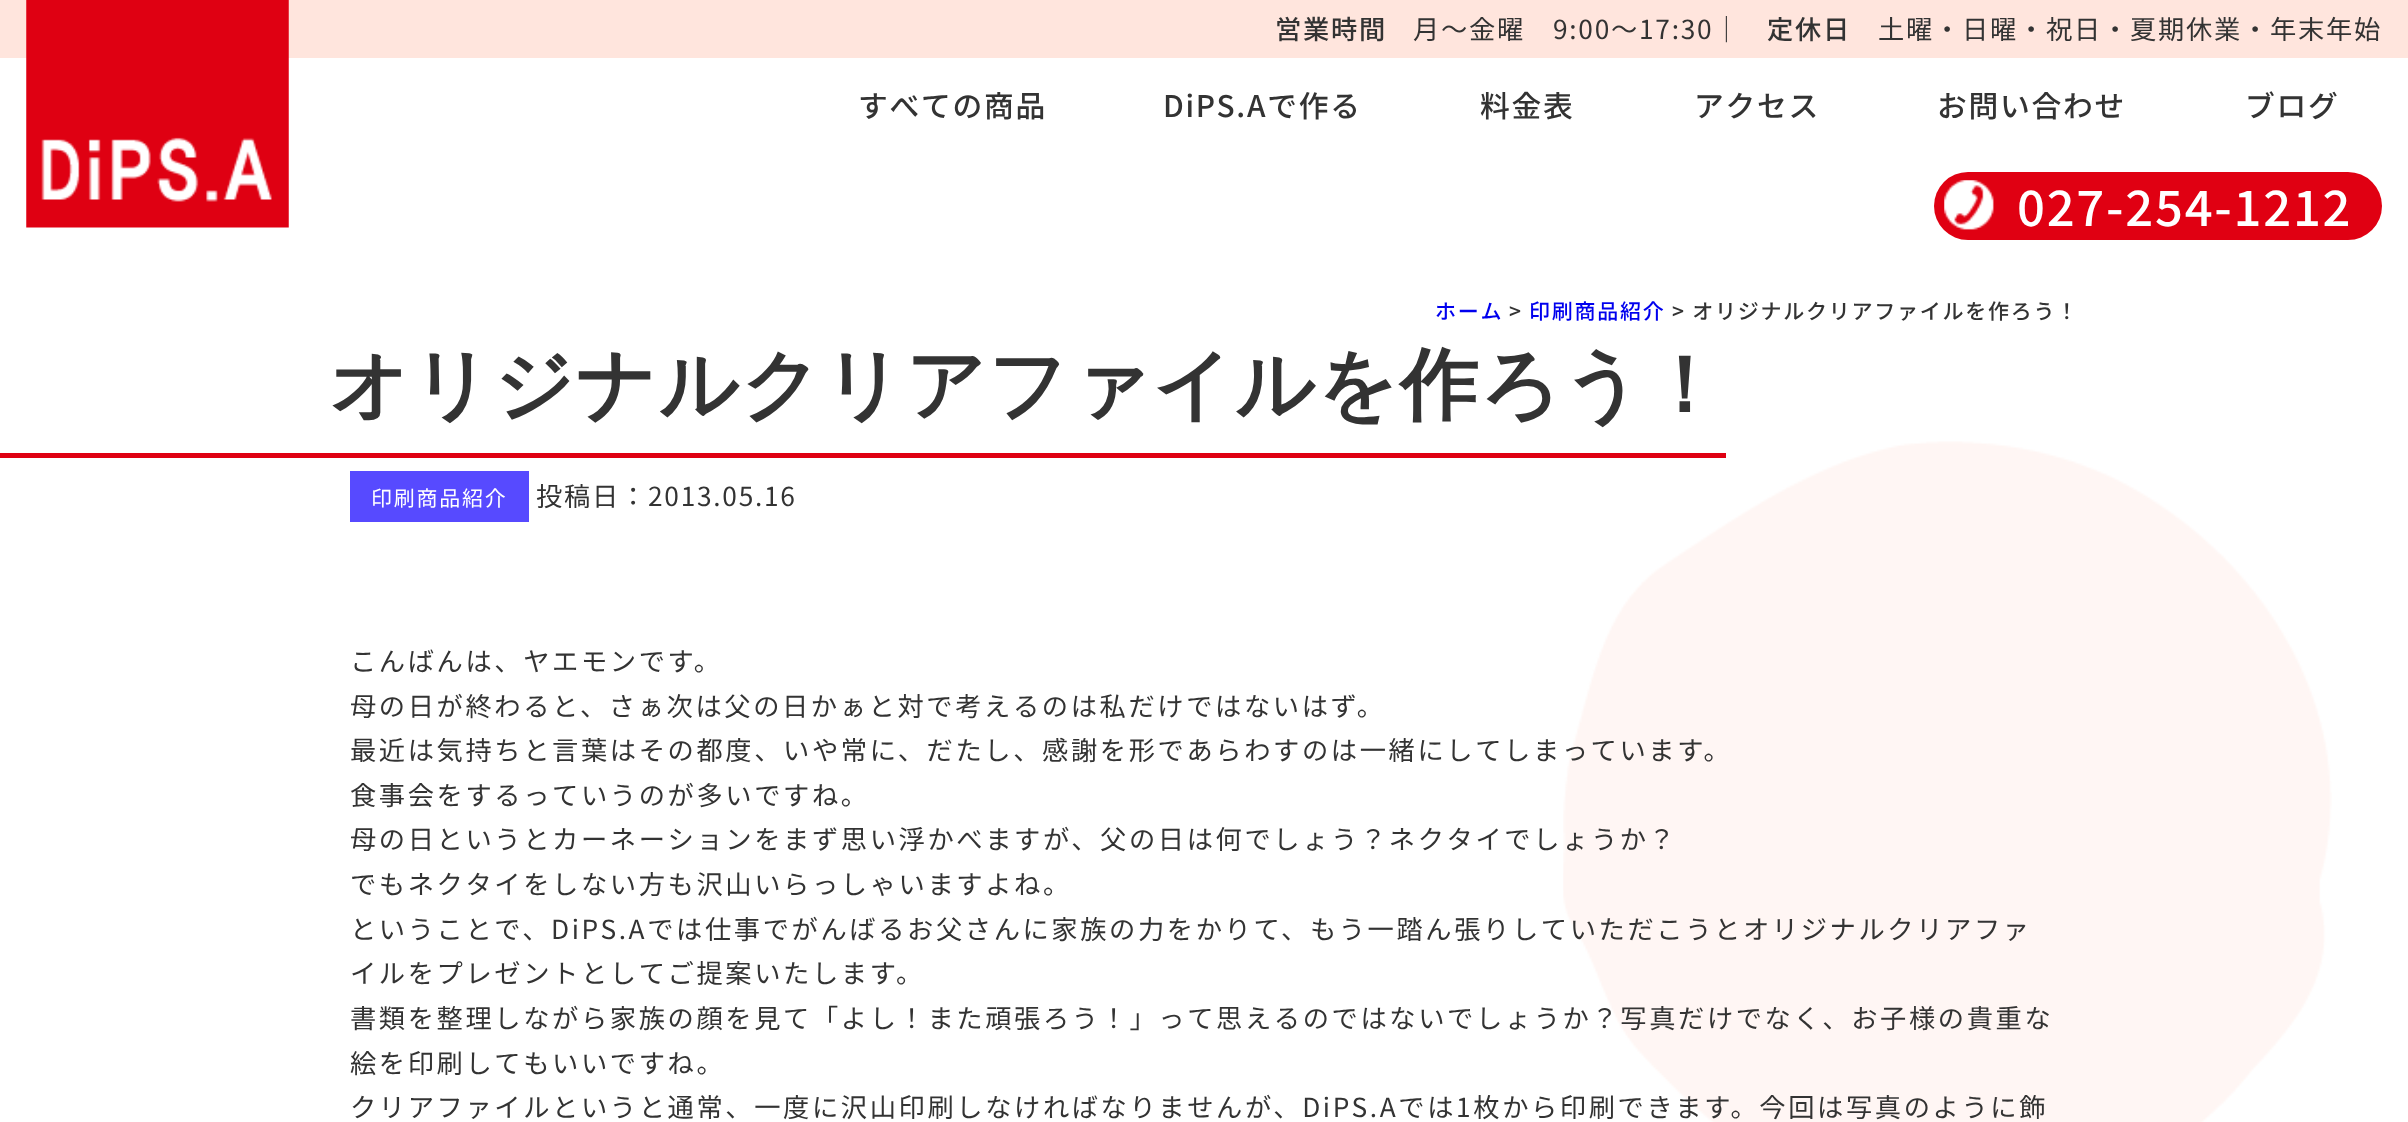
<!DOCTYPE html>
<meta charset="utf-8">
<style>body { margin: 0 } canvas { display: block }</style>
<canvas id="canvas" width="2408" height="1122"></canvas>
<script type="module">
  const canvas = document.getElementById("canvas");
  const ctx = canvas.getContext("2d");
  ctx.miterLimit = 4;
  ctx.fontKerning = "normal";
  async function loadImage(src) {
    const img = new Image();
    img.src = src;
    await img.decode();
    return img;
  }

  ctx.fillStyle = "#ffffff";
  ctx.fillRect(0, 0, 2408, 1122);
  ctx.fillStyle = "#ffe5dd";
  ctx.fillRect(0, 0, 2408, 58);
  ctx.drawImage(await loadImage("img1.png"), 26, 0, 263, 228);
  ctx.letterSpacing = "1.75px";
  ctx.font = "500 26.25px Noto Sans JP";
  ctx.fillStyle = "#333333";
  ctx.fillText("営業時間", 1275, 39);
  ctx.font = "26.25px Noto Sans JP";
  ctx.fillText("月～金曜　9:00～17:30｜", 1413, 39);
  ctx.font = "500 26.25px Noto Sans JP";
  ctx.fillText("定休日", 1767, 39);
  ctx.font = "26.25px Noto Sans JP";
  ctx.fillText("土曜・日曜・祝日・夏期休業・年末年始", 1878, 39);
  ctx.font = "500 29.75px Noto Sans JP";
  ctx.fillText("すべての商品", 858, 117);
  ctx.fillText("DiPS.Aで作る", 1163, 117);
  ctx.fillText("料金表", 1480, 117);
  ctx.fillText("アクセス", 1694, 117);
  ctx.fillText("お問い合わせ", 1937, 117);
  ctx.fillText("ブログ", 2245, 117);
  ctx.fillStyle = "#e00012";
  ctx.beginPath();
  ctx.roundRect(1934, 172, 448, 68, 34);
  ctx.fill();
  ctx.drawImage(await loadImage("img2.png"), 1944, 180, 50, 50);
  ctx.font = "500 49px Noto Sans JP";
  ctx.fillStyle = "#ffffff";
  ctx.fillText("027-254-1212", 2017, 226);
  ctx.drawImage(await loadImage("img3.png"), 1563, 441, 769, 681);
  ctx.font = "500 21px Noto Sans JP";
  ctx.fillStyle = "#0000ee";
  ctx.fillText("ホーム", 1435, 319);
  ctx.fillStyle = "#333333";
  ctx.fillText(">", 1509, 319);
  ctx.fillStyle = "#0000ee";
  ctx.fillText("印刷商品紹介", 1529, 319);
  ctx.fillStyle = "#333333";
  ctx.fillText("> オリジナルクリアファイルを作ろう！", 1672, 319);
  ctx.font = "bold 78.75px WenQuanYi Zen Hei";
  ctx.fillText("オリジナルクリアファイルを作ろう！", 329, 412);
  ctx.fillStyle = "#df0012";
  ctx.fillRect(0, 453, 1726, 5);
  ctx.fillStyle = "#574aff";
  ctx.fillRect(350, 471, 179, 51);
  ctx.font = "21px Noto Sans JP";
  ctx.fillStyle = "#ffffff";
  ctx.fillText("印刷商品紹介", 371, 506);
  ctx.font = "26.25px Noto Sans JP";
  ctx.fillStyle = "#333333";
  ctx.fillText("投稿日：2013.05.16", 536, 506);
  ctx.letterSpacing = "2.62px";
  ctx.fillText("こんばんは、ヤエモンです。", 350, 671);
  ctx.fillText("母の日が終わると、さぁ次は父の日かぁと対で考えるのは私だけではないはず。", 350, 716);
  ctx.fillText("最近は気持ちと言葉はその都度、いや常に、だたし、感謝を形であらわすのは一緒にしてしまっています。", 350, 760);
  ctx.fillText("食事会をするっていうのが多いですね。", 350, 805);
  ctx.fillText("母の日というとカーネーションをまず思い浮かべますが、父の日は何でしょう？ネクタイでしょうか？", 350, 849);
  ctx.fillText("でもネクタイをしない方も沢山いらっしゃいますよね。", 350, 894);
  ctx.fillText("ということで、DiPS.Aでは仕事でがんばるお父さんに家族の力をかりて、もう一踏ん張りしていただこうとオリジナルクリアファ", 350, 939);
  ctx.fillText("イルをプレゼントとしてご提案いたします。", 350, 983);
  ctx.fillText("書類を整理しながら家族の顔を見て「よし！また頑張ろう！」って思えるのではないでしょうか？写真だけでなく、お子様の貴重な", 350, 1028);
  ctx.fillText("絵を印刷してもいいですね。", 350, 1073);
  ctx.fillText("クリアファイルというと通常、一度に沢山印刷しなければなりませんが、DiPS.Aでは1枚から印刷できます。今回は写真のように飾", 350, 1117);
</script>
